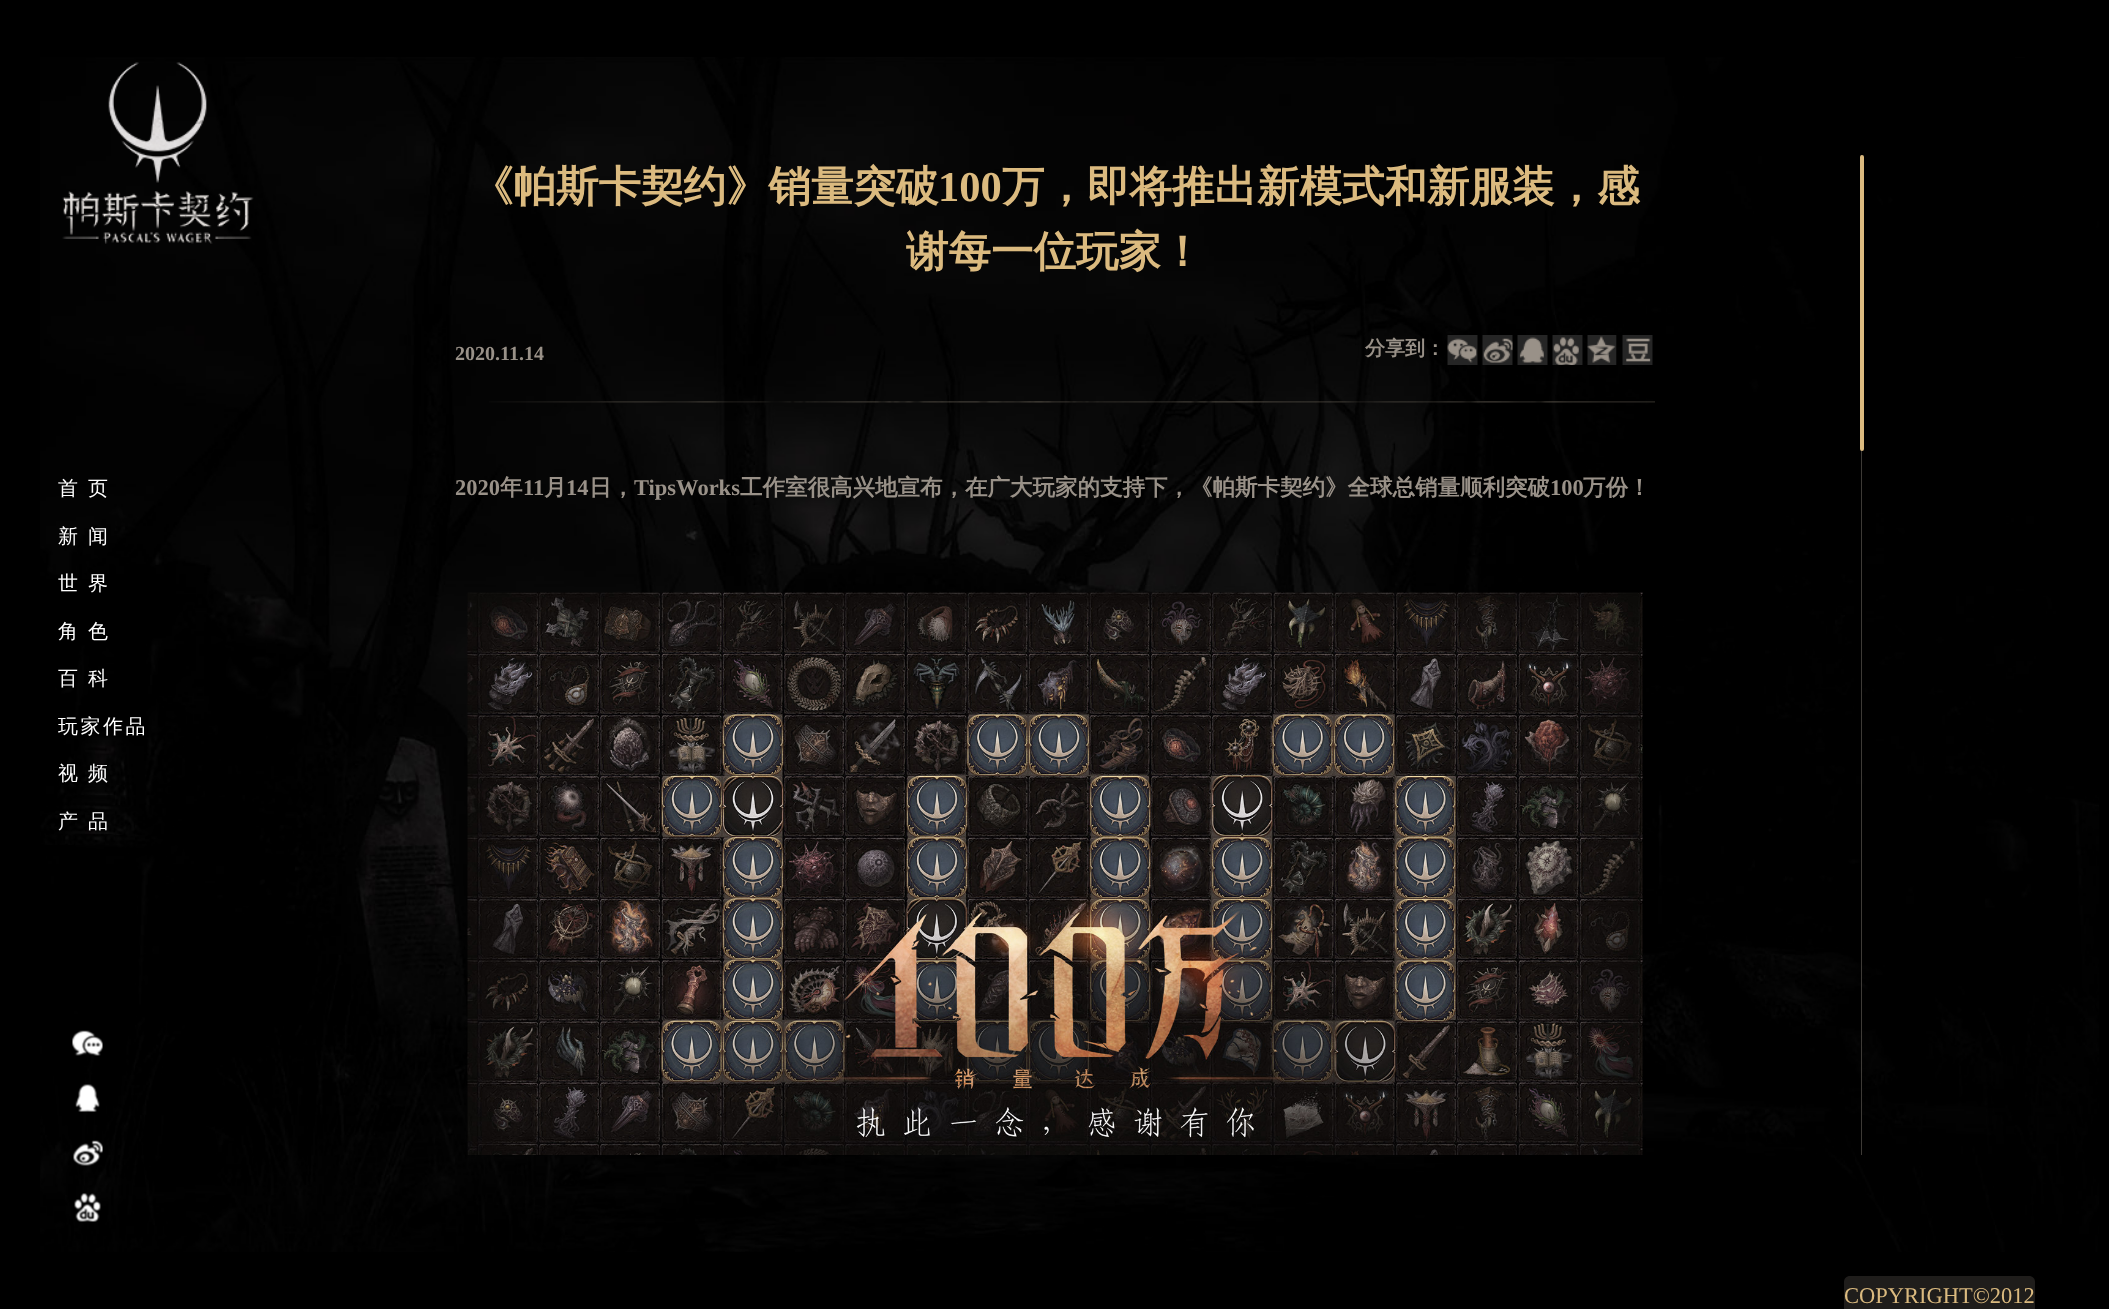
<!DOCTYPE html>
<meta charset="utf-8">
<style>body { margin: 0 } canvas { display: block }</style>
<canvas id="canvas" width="2109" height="1309"></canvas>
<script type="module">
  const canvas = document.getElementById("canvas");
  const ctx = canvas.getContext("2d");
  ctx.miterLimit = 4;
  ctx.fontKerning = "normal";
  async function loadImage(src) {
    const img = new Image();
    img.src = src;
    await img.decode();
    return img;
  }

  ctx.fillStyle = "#000000";
  ctx.fillRect(0, 0, 2109, 1309);
  ctx.drawImage(await loadImage("img1.png"), 40, 57, 2059, 1195);
  ctx.fillStyle = "rgba(153, 145, 136, 0.4)";
  ctx.fillRect(1861, 155, 1, 1000);
  ctx.fillStyle = "#dbba7f";
  ctx.beginPath();
  ctx.roundRect(1860, 155, 4, 296, 2);
  ctx.fill();
  ctx.drawImage(await loadImage("img2.png"), 62, 62, 192, 182);
  ctx.drawImage(await loadImage("img3.png"), 489, 401, 1166, 2);
  ctx.font = "bold 42.5px WenQuanYi Zen Hei";
  ctx.fillText("《帕斯卡契约》销量突破", 471, 201);
  ctx.font = "bold 42.5px Liberation Serif";
  ctx.fillText("100", 938, 201);
  ctx.font = "bold 42.5px WenQuanYi Zen Hei";
  ctx.fillText("万，即将推出新模式和新服装，感", 1002, 201);
  ctx.fillText("谢每一位玩家！", 906, 266);
  ctx.font = "bold 20px Liberation Serif";
  ctx.fillStyle = "#999188";
  ctx.fillText("2020.11.14", 455, 360);
  ctx.font = "bold 20px WenQuanYi Zen Hei";
  ctx.fillText("分享到：", 1365, 355);
  ctx.drawImage(await loadImage("img4.png"), 1447, 335, 31, 30);
  ctx.drawImage(await loadImage("img5.png"), 1482, 335, 31, 30);
  ctx.drawImage(await loadImage("img6.png"), 1517, 335, 31, 30);
  ctx.drawImage(await loadImage("img7.png"), 1552, 335, 31, 30);
  ctx.drawImage(await loadImage("img8.png"), 1587, 335, 30, 30);
  ctx.drawImage(await loadImage("img9.png"), 1622, 335, 31, 30);
  ctx.font = "bold 22.5px Liberation Serif";
  ctx.fillText("2020", 455, 495);
  ctx.font = "bold 22.5px WenQuanYi Zen Hei";
  ctx.fillText("年", 500, 495);
  ctx.font = "bold 22.5px Liberation Serif";
  ctx.fillText("11", 523, 495);
  ctx.font = "bold 22.5px WenQuanYi Zen Hei";
  ctx.fillText("月", 544, 495);
  ctx.font = "bold 22.5px Liberation Serif";
  ctx.fillText("14", 566, 495);
  ctx.font = "bold 22.5px WenQuanYi Zen Hei";
  ctx.fillText("日，", 589, 495);
  ctx.font = "bold 22.5px Liberation Serif";
  ctx.fillText("TipsWorks", 634, 495);
  ctx.font = "bold 22.5px WenQuanYi Zen Hei";
  ctx.fillText("工作室很高兴地宣布，在广大玩家的支持下，《帕斯卡契约》全球总销量顺利突破", 740, 495);
  ctx.font = "bold 22.5px Liberation Serif";
  ctx.fillText("100", 1550, 495);
  ctx.font = "bold 22.5px WenQuanYi Zen Hei";
  ctx.fillText("万份！", 1583, 495);
  ctx.drawImage(await loadImage("img10.png"), 467, 592, 1176, 563);
  ctx.letterSpacing = "2.5px";
  ctx.wordSpacing = "-1px";
  ctx.font = "500 20px WenQuanYi Zen Hei";
  ctx.fillStyle = "#ffffff";
  ctx.fillText("首 页", 58, 495);
  ctx.fillText("新 闻", 58, 543);
  ctx.fillText("世 界", 58, 590);
  ctx.fillText("角 色", 58, 638);
  ctx.fillText("百 科", 58, 685);
  ctx.wordSpacing = "0px";
  ctx.fillText("玩家作品", 58, 733);
  ctx.wordSpacing = "-1px";
  ctx.fillText("视 频", 58, 780);
  ctx.fillText("产 品", 58, 828);
  ctx.drawImage(await loadImage("img11.png"), 72, 1030, 31, 26);
  ctx.drawImage(await loadImage("img12.png"), 75, 1084, 25, 28);
  ctx.drawImage(await loadImage("img13.png"), 73, 1140, 30, 26);
  ctx.drawImage(await loadImage("img14.png"), 74, 1193, 27, 29);
  ctx.fillStyle = "#1f1d1b";
  ctx.beginPath();
  ctx.moveTo(1850, 1276);
  ctx.lineTo(2029, 1276);
  ctx.bezierCurveTo(2032.5, 1276, 2035, 1278.5, 2035, 1282);
  ctx.lineTo(2035, 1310);
  ctx.lineTo(1844, 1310);
  ctx.lineTo(1844, 1282);
  ctx.bezierCurveTo(1844, 1278.5, 1846.5, 1276, 1850, 1276);
  ctx.closePath();
  ctx.fill();
  ctx.letterSpacing = "0px";
  ctx.wordSpacing = "0px";
  ctx.font = "22.5px Liberation Serif";
  ctx.fillStyle = "#dbba7f";
  ctx.fillText("COPYRIGHT©2012", 1844, 1303);
</script>
